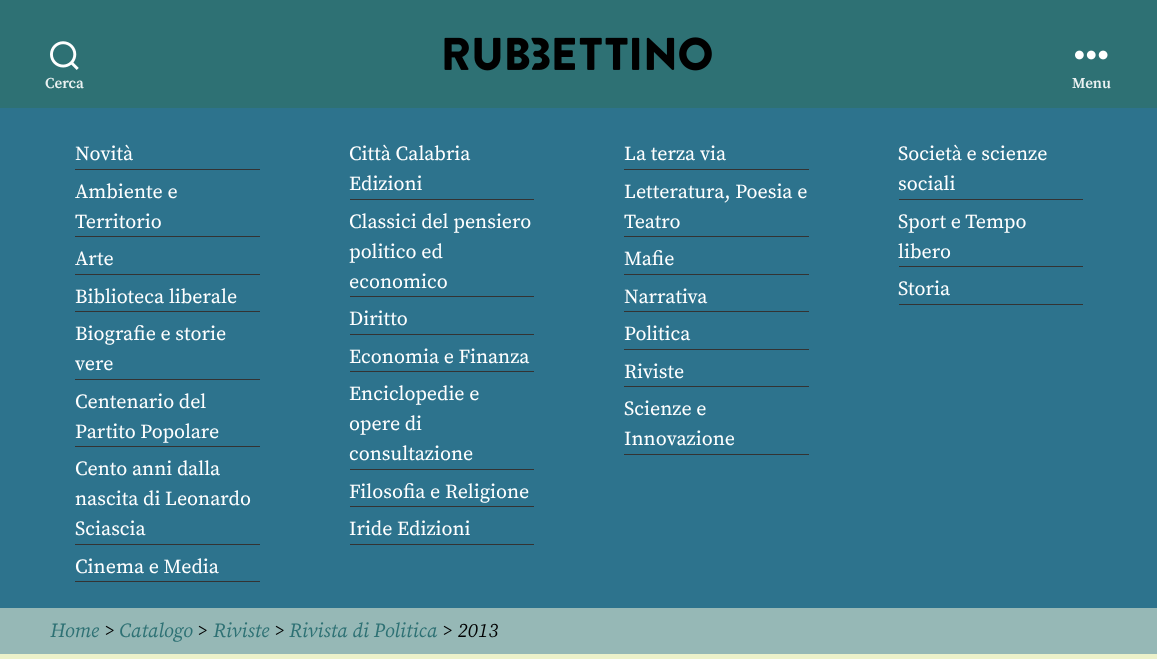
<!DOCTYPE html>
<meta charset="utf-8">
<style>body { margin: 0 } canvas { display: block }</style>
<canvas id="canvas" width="1157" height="659"></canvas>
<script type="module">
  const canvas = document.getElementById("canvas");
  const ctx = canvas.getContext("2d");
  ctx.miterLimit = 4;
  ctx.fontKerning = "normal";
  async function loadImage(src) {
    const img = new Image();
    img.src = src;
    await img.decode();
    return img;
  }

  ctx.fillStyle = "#2d738d";
  ctx.fillRect(0, 0, 1157, 659);
  ctx.fillStyle = "#2e7174";
  ctx.fillRect(0, 0, 1157, 108);
  ctx.drawImage(await loadImage("img1.png"), 444, 37, 268, 34);
  ctx.drawImage(await loadImage("img2.png"), 50, 41, 29, 29);
  ctx.font = "600 15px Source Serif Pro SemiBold";
  ctx.fillStyle = "#ecf2f2";
  ctx.fillText("Cerca", 45, 88);
  ctx.drawImage(await loadImage("img3.png"), 1075, 50, 33, 10);
  ctx.fillText("Menu", 1072, 88);
  ctx.fillStyle = "#333333";
  ctx.fillRect(75, 169, 185, 1);
  ctx.font = "20px Source Serif Pro";
  ctx.fillStyle = "#ffffff";
  ctx.fillText("Novità", 75, 160);
  ctx.fillStyle = "#333333";
  ctx.fillRect(75, 236, 185, 1);
  ctx.fillStyle = "#ffffff";
  ctx.fillText("Ambiente e", 75, 198);
  ctx.fillText("Territorio", 75, 228);
  ctx.fillStyle = "#333333";
  ctx.fillRect(75, 274, 185, 1);
  ctx.fillStyle = "#ffffff";
  ctx.fillText("Arte", 75, 265);
  ctx.fillStyle = "#333333";
  ctx.fillRect(75, 311, 185, 1);
  ctx.fillStyle = "#ffffff";
  ctx.fillText("Biblioteca liberale", 75, 303);
  ctx.fillStyle = "#333333";
  ctx.fillRect(75, 379, 185, 1);
  ctx.fillStyle = "#ffffff";
  ctx.fillText("Biografie e storie", 75, 340);
  ctx.fillText("vere", 75, 370);
  ctx.fillStyle = "#333333";
  ctx.fillRect(75, 446, 185, 1);
  ctx.fillStyle = "#ffffff";
  ctx.fillText("Centenario del", 75, 408);
  ctx.fillText("Partito Popolare", 75, 438);
  ctx.fillStyle = "#333333";
  ctx.fillRect(75, 544, 185, 1);
  ctx.fillStyle = "#ffffff";
  ctx.fillText("Cento anni dalla", 75, 475);
  ctx.fillText("nascita di Leonardo", 75, 505);
  ctx.fillText("Sciascia", 75, 535);
  ctx.fillStyle = "#333333";
  ctx.fillRect(75, 581, 185, 1);
  ctx.fillStyle = "#ffffff";
  ctx.fillText("Cinema e Media", 75, 573);
  ctx.fillStyle = "#333333";
  ctx.fillRect(350, 199, 184, 1);
  ctx.fillStyle = "#ffffff";
  ctx.fillText("Città Calabria", 349, 160);
  ctx.fillText("Edizioni", 349, 190);
  ctx.fillStyle = "#333333";
  ctx.fillRect(350, 296, 184, 1);
  ctx.fillStyle = "#ffffff";
  ctx.fillText("Classici del pensiero", 349, 228);
  ctx.fillText("politico ed", 349, 258);
  ctx.fillText("economico", 349, 288);
  ctx.fillStyle = "#333333";
  ctx.fillRect(350, 334, 184, 1);
  ctx.fillStyle = "#ffffff";
  ctx.fillText("Diritto", 349, 325);
  ctx.fillStyle = "#333333";
  ctx.fillRect(350, 371, 184, 1);
  ctx.fillStyle = "#ffffff";
  ctx.fillText("Economia e Finanza", 349, 363);
  ctx.fillStyle = "#333333";
  ctx.fillRect(350, 469, 184, 1);
  ctx.fillStyle = "#ffffff";
  ctx.fillText("Enciclopedie e", 349, 400);
  ctx.fillText("opere di", 349, 430);
  ctx.fillText("consultazione", 349, 460);
  ctx.fillStyle = "#333333";
  ctx.fillRect(350, 506, 184, 1);
  ctx.fillStyle = "#ffffff";
  ctx.fillText("Filosofia e Religione", 349, 498);
  ctx.fillStyle = "#333333";
  ctx.fillRect(350, 544, 184, 1);
  ctx.fillStyle = "#ffffff";
  ctx.fillText("Iride Edizioni", 349, 535);
  ctx.fillStyle = "#333333";
  ctx.fillRect(624, 169, 185, 1);
  ctx.fillStyle = "#ffffff";
  ctx.fillText("La terza via", 624, 160);
  ctx.fillStyle = "#333333";
  ctx.fillRect(624, 236, 185, 1);
  ctx.fillStyle = "#ffffff";
  ctx.fillText("Letteratura, Poesia e", 624, 198);
  ctx.fillText("Teatro", 624, 228);
  ctx.fillStyle = "#333333";
  ctx.fillRect(624, 274, 185, 1);
  ctx.fillStyle = "#ffffff";
  ctx.fillText("Mafie", 624, 265);
  ctx.fillStyle = "#333333";
  ctx.fillRect(624, 311, 185, 1);
  ctx.fillStyle = "#ffffff";
  ctx.fillText("Narrativa", 624, 303);
  ctx.fillStyle = "#333333";
  ctx.fillRect(624, 349, 185, 1);
  ctx.fillStyle = "#ffffff";
  ctx.fillText("Politica", 624, 340);
  ctx.fillStyle = "#333333";
  ctx.fillRect(624, 386, 185, 1);
  ctx.fillStyle = "#ffffff";
  ctx.fillText("Riviste", 624, 378);
  ctx.fillStyle = "#333333";
  ctx.fillRect(624, 454, 185, 1);
  ctx.fillStyle = "#ffffff";
  ctx.fillText("Scienze e", 624, 415);
  ctx.fillText("Innovazione", 624, 445);
  ctx.fillStyle = "#333333";
  ctx.fillRect(899, 199, 184, 1);
  ctx.fillStyle = "#ffffff";
  ctx.fillText("Società e scienze", 898, 160);
  ctx.fillText("sociali", 898, 190);
  ctx.fillStyle = "#333333";
  ctx.fillRect(899, 266, 184, 1);
  ctx.fillStyle = "#ffffff";
  ctx.fillText("Sport e Tempo", 898, 228);
  ctx.fillText("libero", 898, 258);
  ctx.fillStyle = "#333333";
  ctx.fillRect(899, 304, 184, 1);
  ctx.fillStyle = "#ffffff";
  ctx.fillText("Storia", 898, 295);
  ctx.fillStyle = "#96b8b6";
  ctx.fillRect(0, 608, 1157, 46);
  ctx.font = "italic 20px Source Serif Pro";
  ctx.fillStyle = "#2e7174";
  ctx.fillText("Home", 50, 637);
  ctx.fillStyle = "#000000";
  ctx.fillText(">", 104, 637);
  ctx.fillStyle = "#2e7174";
  ctx.fillText("Catalogo", 119, 637);
  ctx.fillStyle = "#000000";
  ctx.fillText(">", 197, 637);
  ctx.fillStyle = "#2e7174";
  ctx.fillText("Riviste", 213, 637);
  ctx.fillStyle = "#000000";
  ctx.fillText(">", 274, 637);
  ctx.fillStyle = "#2e7174";
  ctx.fillText("Rivista di Politica", 289, 637);
  ctx.fillStyle = "#000000";
  ctx.fillText("> 2013", 442, 637);
  ctx.fillStyle = "#ecf1ca";
  ctx.fillRect(0, 654, 1157, 5);
</script>
